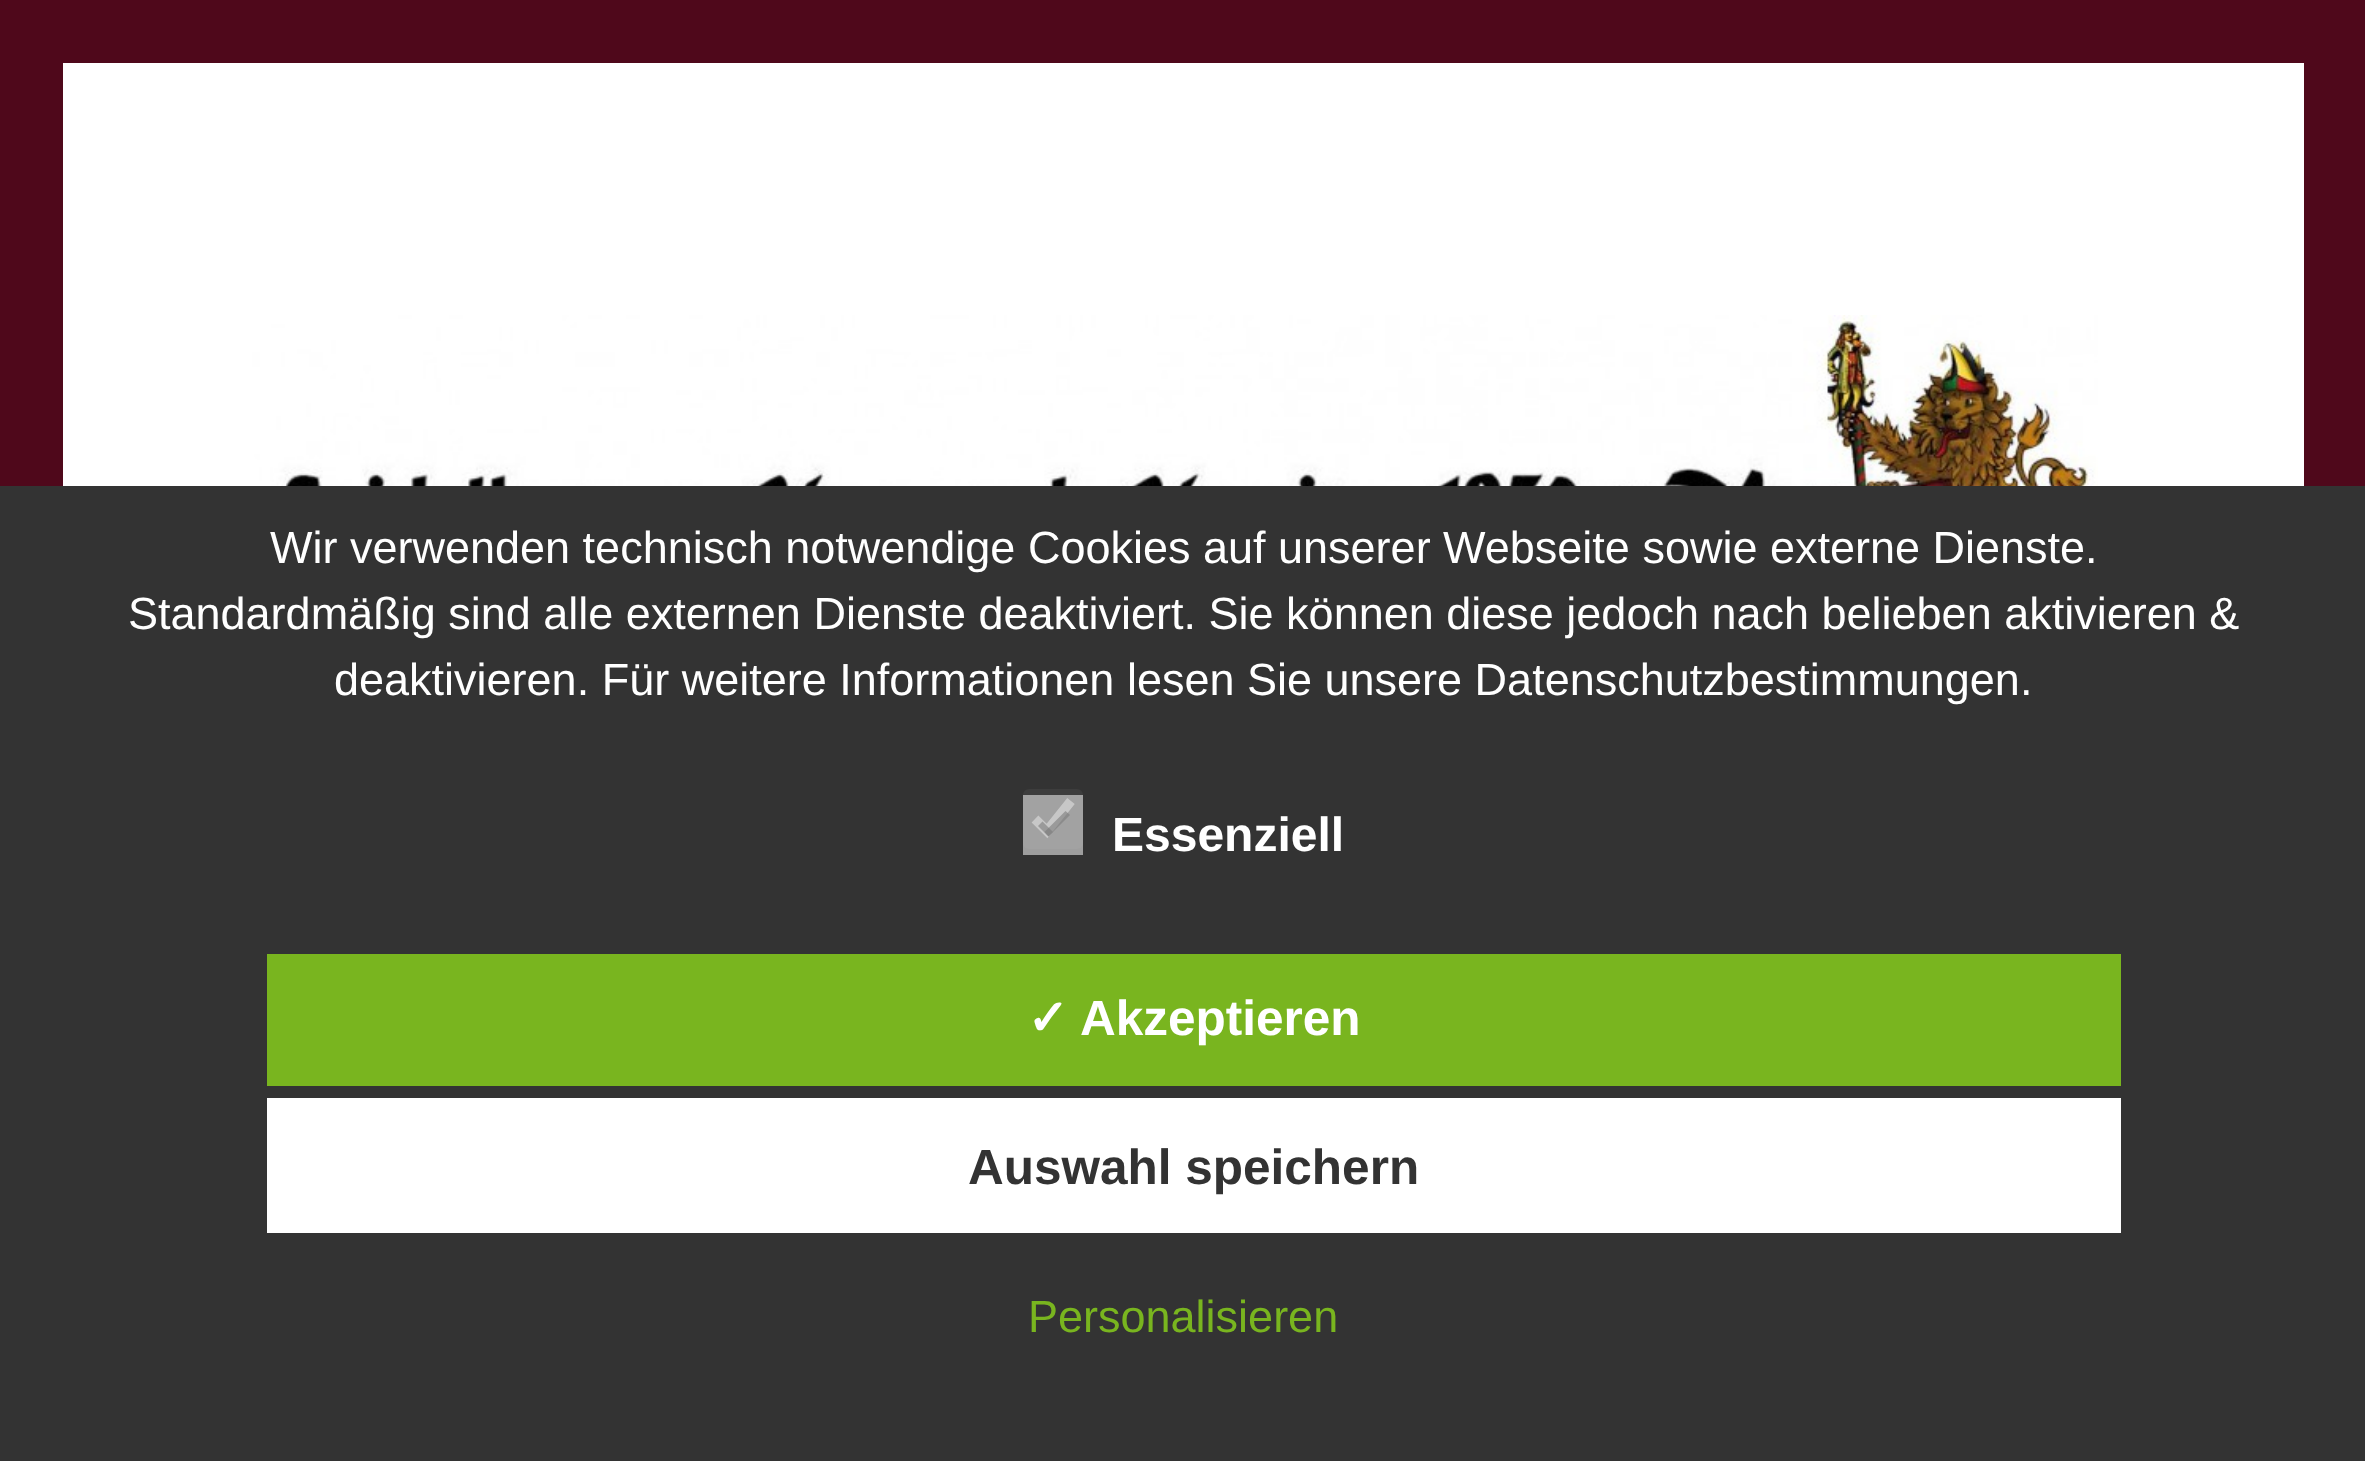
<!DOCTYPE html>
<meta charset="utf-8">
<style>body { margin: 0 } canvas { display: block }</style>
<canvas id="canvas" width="2365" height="1461"></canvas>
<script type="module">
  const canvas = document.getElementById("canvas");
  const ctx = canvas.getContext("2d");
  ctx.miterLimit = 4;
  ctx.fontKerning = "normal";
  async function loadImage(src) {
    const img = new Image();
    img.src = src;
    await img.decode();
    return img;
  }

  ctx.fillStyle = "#4f081b";
  ctx.fillRect(0, 0, 2365, 1461);
  ctx.fillStyle = "#ffffff";
  ctx.fillRect(63, 63, 2241, 423);
  ctx.drawImage(await loadImage("img1.png"), 252, 315, 1846, 171);
  ctx.fillStyle = "#333333";
  ctx.fillRect(0, 486, 2365, 975);
  ctx.font = "45px Liberation Sans";
  ctx.fillStyle = "#ffffff";
  ctx.fillText("Wir verwenden technisch notwendige Cookies auf unserer Webseite sowie externe Dienste.", 270, 563);
  ctx.fillText("Standardmäßig sind alle externen Dienste deaktiviert. Sie können diese jedoch nach belieben aktivieren &", 128, 629);
  ctx.fillText("deaktivieren. Für weitere Informationen lesen Sie unsere Datenschutzbestimmungen.", 334, 695);
  ctx.fillStyle = "#3d3d3d";
  ctx.beginPath();
  ctx.roundRect(1023, 789, 60, 60, 6);
  ctx.fill();
  ctx.beginPath();
  ctx.moveTo(1035, 819);
  ctx.lineTo(1047, 831);
  ctx.lineTo(1071, 801);
  ctx.strokeStyle = "#999999";
  ctx.lineWidth = 9.6;
  ctx.stroke();
  ctx.fillStyle = "rgba(230, 230, 230, 0.6)";
  ctx.fillRect(1023, 795, 60, 60);
  ctx.fillStyle = "rgba(123, 123, 123, 0.6)";
  ctx.beginPath();
  ctx.moveTo(1065.5, 811);
  ctx.lineTo(1070, 815);
  ctx.lineTo(1048.5, 836.5);
  ctx.lineTo(1044.5, 832);
  ctx.closePath();
  ctx.fill();
  ctx.beginPath();
  ctx.moveTo(1042.5, 821.5);
  ctx.lineTo(1053, 832);
  ctx.lineTo(1048.5, 836.5);
  ctx.lineTo(1038, 826);
  ctx.closePath();
  ctx.fill();
  ctx.font = "bold 48px Liberation Sans";
  ctx.fillStyle = "#ffffff";
  ctx.fillText("Essenziell", 1112, 851);
  ctx.fillStyle = "#79b51f";
  ctx.fillRect(267, 954, 1854, 132);
  ctx.font = "bold 49.5px DejaVu Sans";
  ctx.fillStyle = "#ffffff";
  ctx.fillText("✓", 1027, 1035);
  ctx.font = "bold 49.5px Liberation Sans";
  ctx.fillText("Akzeptieren", 1080, 1035);
  ctx.fillRect(267, 1098, 1854, 135);
  ctx.fillStyle = "#333333";
  ctx.fillText("Auswahl speichern", 968, 1184);
  ctx.font = "45px Liberation Sans";
  ctx.fillStyle = "#79b51f";
  ctx.fillText("Personalisieren", 1028, 1332);
</script>
